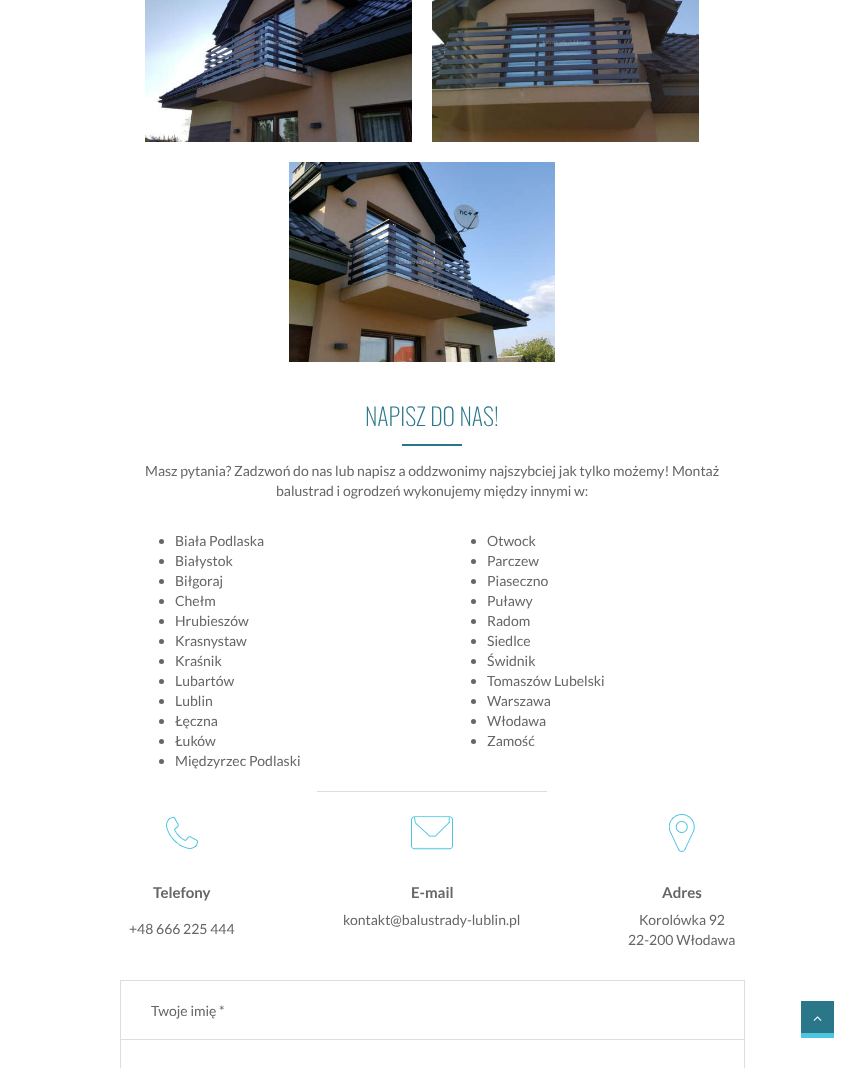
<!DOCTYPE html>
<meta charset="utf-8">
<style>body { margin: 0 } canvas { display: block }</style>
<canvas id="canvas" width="864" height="1068"></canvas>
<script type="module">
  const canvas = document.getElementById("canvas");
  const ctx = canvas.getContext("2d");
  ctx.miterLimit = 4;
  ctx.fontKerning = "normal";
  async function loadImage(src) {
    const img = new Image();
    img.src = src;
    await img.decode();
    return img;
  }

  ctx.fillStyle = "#ffffff";
  ctx.fillRect(0, 0, 864, 1068);
  ctx.drawImage(await loadImage("img1.png"), 145, 0, 267, 142);
  ctx.drawImage(await loadImage("img2.png"), 432, 0, 267, 142);
  ctx.drawImage(await loadImage("img3.png"), 289, 162, 266, 200);
  ctx.font = "200 24px Oswald";
  ctx.fillStyle = "#2a7789";
  ctx.fillText("NAPISZ DO NAS!", 365, 426);
  ctx.fillRect(402, 444, 60, 2);
  ctx.font = "14px Lato";
  ctx.fillStyle = "#666666";
  ctx.fillText("Masz pytania? Zadzwoń do nas lub napisz a oddzwonimy najszybciej jak tylko możemy! Montaż", 145, 476);
  ctx.fillText("balustrad i ogrodzeń wykonujemy między innymi w:", 276, 496);
  ctx.beginPath();
  ctx.arc(161.5, 541.5, 2.5, 0, Math.PI * 2);
  ctx.fill();
  ctx.fillText("Biała Podlaska", 175, 546);
  ctx.beginPath();
  ctx.arc(161.5, 561.5, 2.5, 0, Math.PI * 2);
  ctx.fill();
  ctx.fillText("Białystok", 175, 566);
  ctx.beginPath();
  ctx.arc(161.5, 581.5, 2.5, 0, Math.PI * 2);
  ctx.fill();
  ctx.fillText("Biłgoraj", 175, 586);
  ctx.beginPath();
  ctx.arc(161.5, 601.5, 2.5, 0, Math.PI * 2);
  ctx.fill();
  ctx.fillText("Chełm", 175, 606);
  ctx.beginPath();
  ctx.arc(161.5, 621.5, 2.5, 0, Math.PI * 2);
  ctx.fill();
  ctx.fillText("Hrubieszów", 175, 626);
  ctx.beginPath();
  ctx.arc(161.5, 641.5, 2.5, 0, Math.PI * 2);
  ctx.fill();
  ctx.fillText("Krasnystaw", 175, 646);
  ctx.beginPath();
  ctx.arc(161.5, 661.5, 2.5, 0, Math.PI * 2);
  ctx.fill();
  ctx.fillText("Kraśnik", 175, 666);
  ctx.beginPath();
  ctx.arc(161.5, 681.5, 2.5, 0, Math.PI * 2);
  ctx.fill();
  ctx.fillText("Lubartów", 175, 686);
  ctx.beginPath();
  ctx.arc(161.5, 701.5, 2.5, 0, Math.PI * 2);
  ctx.fill();
  ctx.fillText("Lublin", 175, 706);
  ctx.beginPath();
  ctx.arc(161.5, 721.5, 2.5, 0, Math.PI * 2);
  ctx.fill();
  ctx.fillText("Łęczna", 175, 726);
  ctx.beginPath();
  ctx.arc(161.5, 741.5, 2.5, 0, Math.PI * 2);
  ctx.fill();
  ctx.fillText("Łuków", 175, 746);
  ctx.beginPath();
  ctx.arc(161.5, 761.5, 2.5, 0, Math.PI * 2);
  ctx.fill();
  ctx.fillText("Międzyrzec Podlaski", 175, 766);
  ctx.beginPath();
  ctx.arc(473.5, 541.5, 2.5, 0, Math.PI * 2);
  ctx.fill();
  ctx.fillText("Otwock", 487, 546);
  ctx.beginPath();
  ctx.arc(473.5, 561.5, 2.5, 0, Math.PI * 2);
  ctx.fill();
  ctx.fillText("Parczew", 487, 566);
  ctx.beginPath();
  ctx.arc(473.5, 581.5, 2.5, 0, Math.PI * 2);
  ctx.fill();
  ctx.fillText("Piaseczno", 487, 586);
  ctx.beginPath();
  ctx.arc(473.5, 601.5, 2.5, 0, Math.PI * 2);
  ctx.fill();
  ctx.fillText("Puławy", 487, 606);
  ctx.beginPath();
  ctx.arc(473.5, 621.5, 2.5, 0, Math.PI * 2);
  ctx.fill();
  ctx.fillText("Radom", 487, 626);
  ctx.beginPath();
  ctx.arc(473.5, 641.5, 2.5, 0, Math.PI * 2);
  ctx.fill();
  ctx.fillText("Siedlce", 487, 646);
  ctx.beginPath();
  ctx.arc(473.5, 661.5, 2.5, 0, Math.PI * 2);
  ctx.fill();
  ctx.fillText("Świdnik", 487, 666);
  ctx.beginPath();
  ctx.arc(473.5, 681.5, 2.5, 0, Math.PI * 2);
  ctx.fill();
  ctx.fillText("Tomaszów Lubelski", 487, 686);
  ctx.beginPath();
  ctx.arc(473.5, 701.5, 2.5, 0, Math.PI * 2);
  ctx.fill();
  ctx.fillText("Warszawa", 487, 706);
  ctx.beginPath();
  ctx.arc(473.5, 721.5, 2.5, 0, Math.PI * 2);
  ctx.fill();
  ctx.fillText("Włodawa", 487, 726);
  ctx.beginPath();
  ctx.arc(473.5, 741.5, 2.5, 0, Math.PI * 2);
  ctx.fill();
  ctx.fillText("Zamość", 487, 746);
  ctx.fillStyle = "#dddddd";
  ctx.fillRect(317, 791, 230, 1);
  ctx.drawImage(await loadImage("img4.png"), 166, 817, 32, 32);
  ctx.font = "bold 15px Lato";
  ctx.fillStyle = "#666666";
  ctx.fillText("Telefony", 153, 898);
  ctx.font = "14px Lato";
  ctx.fillText("+48 666 225 444", 129, 934);
  ctx.drawImage(await loadImage("img5.png"), 411, 816, 42, 34);
  ctx.font = "bold 15px Lato";
  ctx.fillText("E-mail", 411, 898);
  ctx.font = "14px Lato";
  ctx.fillText("kontakt@balustrady-lublin.pl", 343, 925);
  ctx.drawImage(await loadImage("img6.png"), 669, 814, 26, 38);
  ctx.font = "bold 15px Lato";
  ctx.fillText("Adres", 662, 898);
  ctx.font = "14px Lato";
  ctx.fillText("Korolówka 92", 639, 925);
  ctx.fillText("22-200 Włodawa", 628, 945);
  ctx.strokeStyle = "#dddddd";
  ctx.strokeRect(120.5, 980.5, 624, 59);
  ctx.fillText("Twoje imię *", 151, 1016);
  ctx.strokeRect(120.5, 1039.5, 624, 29);
  ctx.fillStyle = "#2a7789";
  ctx.fillRect(801, 1001, 33, 32);
  ctx.fillStyle = "#4ec6e2";
  ctx.fillRect(801, 1033, 33, 5);
  ctx.drawImage(await loadImage("img7.png"), 813, 1016, 9, 5);
</script>
